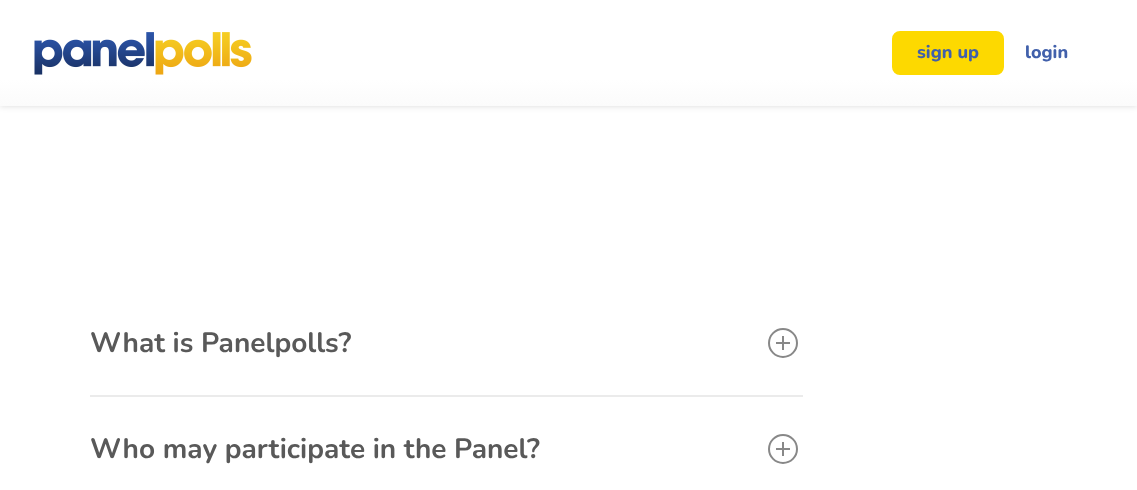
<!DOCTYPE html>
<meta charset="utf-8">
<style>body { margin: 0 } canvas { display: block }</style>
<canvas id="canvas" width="1137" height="490"></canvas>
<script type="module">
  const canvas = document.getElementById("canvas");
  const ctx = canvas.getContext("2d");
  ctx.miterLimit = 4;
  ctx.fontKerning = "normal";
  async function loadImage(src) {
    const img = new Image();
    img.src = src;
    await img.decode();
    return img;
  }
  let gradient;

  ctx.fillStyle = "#ffffff";
  ctx.fillRect(0, 0, 1137, 490);
  ctx.fillStyle = "rgba(0, 0, 0, 0.15)";
  ctx.filter = "blur(3px)";
  ctx.beginPath();
  ctx.rect(0, 0, 1137, 106);
  ctx.fill();
  ctx.filter = "none";
  gradient = ctx.createLinearGradient(569, 0, 569, 106);
  gradient.addColorStop(0.75, "#ffffff");
  gradient.addColorStop(1, "#fbfbfb");
  ctx.fillStyle = gradient;
  ctx.fillRect(0, 0, 1137, 106);
  ctx.drawImage(await loadImage("img1.png"), 34, 32, 218, 43);
  ctx.fillStyle = "#fdd900";
  ctx.beginPath();
  ctx.roundRect(894.5, 33.5, 107, 39, 5.5);
  ctx.fill();
  ctx.strokeStyle = "#fdd900";
  ctx.lineWidth = 5;
  ctx.stroke();
  ctx.font = "800 18px Nunito";
  ctx.fillStyle = "#4160ab";
  ctx.fillText("sign up", 917, 58);
  ctx.fillText("login", 1025, 58);
  ctx.fillStyle = "#ebebeb";
  ctx.fillRect(90, 395, 713, 2);
  ctx.font = "bold 28px Nunito";
  ctx.fillStyle = "#595959";
  ctx.fillText("What is Panelpolls?", 90, 352);
  ctx.beginPath();
  ctx.arc(783, 343, 14, 0, Math.PI * 2);
  ctx.strokeStyle = "#888888";
  ctx.lineWidth = 2;
  ctx.stroke();
  ctx.fillStyle = "#888888";
  ctx.fillRect(776, 342, 14, 2);
  ctx.fillRect(782, 336, 2, 14);
  ctx.fillStyle = "#595959";
  ctx.fillText("Who may participate in the Panel?", 90, 458);
  ctx.beginPath();
  ctx.arc(783, 449, 14, 0, Math.PI * 2);
  ctx.stroke();
  ctx.fillStyle = "#888888";
  ctx.fillRect(776, 448, 14, 2);
  ctx.fillRect(782, 442, 2, 14);
</script>
